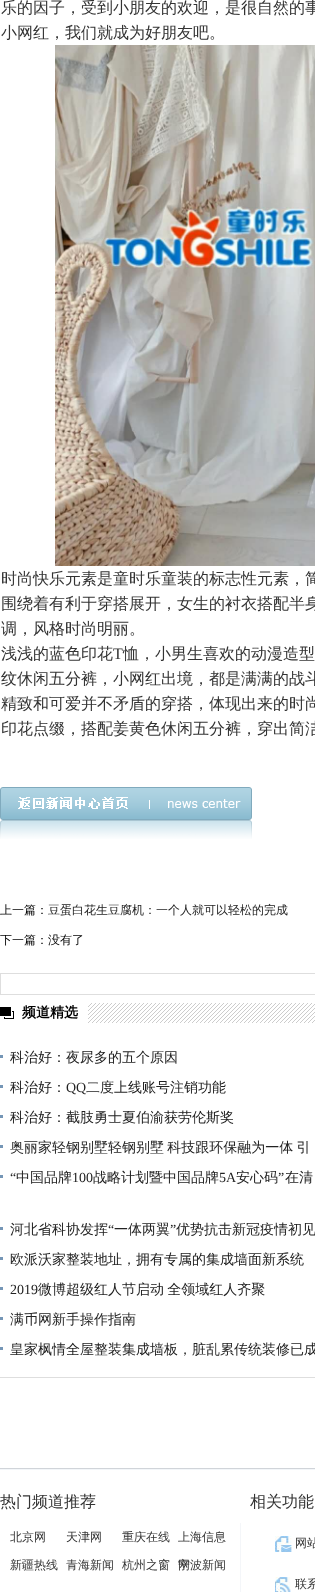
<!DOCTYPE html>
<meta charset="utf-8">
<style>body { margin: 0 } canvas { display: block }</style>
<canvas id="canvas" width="315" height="1592"></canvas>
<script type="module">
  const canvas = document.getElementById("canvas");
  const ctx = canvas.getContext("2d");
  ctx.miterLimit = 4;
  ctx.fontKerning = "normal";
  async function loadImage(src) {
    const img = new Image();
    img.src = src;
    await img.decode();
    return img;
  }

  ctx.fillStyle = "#ffffff";
  ctx.fillRect(0, 0, 315, 1592);
  ctx.font = "500 16px WenQuanYi Zen Hei";
  ctx.fillStyle = "#333333";
  ctx.fillText("乐的因子，受到小朋友的欢迎，是很自然的事", 1, 13);
  ctx.fillText("小网红，我们就成为好朋友吧。", 1, 38);
  ctx.drawImage(await loadImage("img1.png"), 55, 45, 260, 521);
  ctx.fillText("时尚快乐元素是童时乐童装的标志性元素，简", 1, 584);
  ctx.fillText("围绕着有利于穿搭展开，女生的衬衣搭配半身", 1, 609);
  ctx.fillText("调，风格时尚明丽。", 1, 634);
  ctx.fillText("浅浅的蓝色印花", 1, 659);
  ctx.font = "16px Liberation Serif";
  ctx.fillText("T", 113, 659);
  ctx.font = "500 16px WenQuanYi Zen Hei";
  ctx.fillText("恤，小男生喜欢的动漫造型", 123, 659);
  ctx.fillText("纹休闲五分裤，小网红出境，都是满满的战斗", 1, 684);
  ctx.fillText("精致和可爱并不矛盾的穿搭，体现出来的时尚", 1, 709);
  ctx.fillText("印花点缀，搭配姜黄色休闲五分裤，穿出简洁", 1, 734);
  ctx.drawImage(await loadImage("img2.png"), 0, 787, 252, 52);
  ctx.font = "500 12px WenQuanYi Zen Hei";
  ctx.fillStyle = "#000000";
  ctx.fillText("上一篇：", 0, 914);
  ctx.fillStyle = "#222222";
  ctx.fillText("豆蛋白花生豆腐机：一个人就可以轻松的完成", 48, 914);
  ctx.fillStyle = "#000000";
  ctx.fillText("下一篇：没有了", 0, 944);
  ctx.strokeStyle = "#dedede";
  ctx.strokeRect(0.5, 973.5, 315, 21);
  ctx.drawImage(await loadImage("img3.png"), 88, 1003, 227, 20);
  ctx.drawImage(await loadImage("img4.png"), 0, 1007, 14, 12);
  ctx.font = "bold 14px WenQuanYi Zen Hei";
  ctx.fillText("频道精选", 22, 1017);
  ctx.fillStyle = "#dedede";
  ctx.fillRect(0, 1377, 315, 1);
  ctx.fillStyle = "#7596b6";
  ctx.fillRect(0, 1055, 3, 3);
  ctx.font = "500 14px WenQuanYi Zen Hei";
  ctx.fillStyle = "#222222";
  ctx.fillText("科治好：夜尿多的五个原因", 10, 1062);
  ctx.fillStyle = "#7596b6";
  ctx.fillRect(0, 1085, 3, 3);
  ctx.fillStyle = "#222222";
  ctx.fillText("科治好：", 10, 1092);
  ctx.font = "14px Liberation Serif";
  ctx.fillText("QQ", 66, 1092);
  ctx.font = "500 14px WenQuanYi Zen Hei";
  ctx.fillText("二度上线账号注销功能", 86, 1092);
  ctx.fillStyle = "#7596b6";
  ctx.fillRect(0, 1115, 3, 3);
  ctx.fillStyle = "#222222";
  ctx.fillText("科治好：截肢勇士夏伯渝获劳伦斯奖", 10, 1122);
  ctx.fillStyle = "#7596b6";
  ctx.fillRect(0, 1145, 3, 3);
  ctx.wordSpacing = "-1px";
  ctx.fillStyle = "#222222";
  ctx.fillText("奥丽家轻钢别墅轻钢别墅 科技跟环保融为一体 引", 10, 1152);
  ctx.fillStyle = "#7596b6";
  ctx.fillRect(0, 1175, 3, 3);
  ctx.wordSpacing = "0px";
  ctx.font = "14px Liberation Serif";
  ctx.fillStyle = "#222222";
  ctx.fillText("“", 10, 1182);
  ctx.font = "500 14px WenQuanYi Zen Hei";
  ctx.fillText("中国品牌", 16, 1182);
  ctx.font = "14px Liberation Serif";
  ctx.fillText("100", 72, 1182);
  ctx.font = "500 14px WenQuanYi Zen Hei";
  ctx.fillText("战略计划暨中国品牌", 93, 1182);
  ctx.font = "14px Liberation Serif";
  ctx.fillText("5A", 219, 1182);
  ctx.font = "500 14px WenQuanYi Zen Hei";
  ctx.fillText("安心码", 236, 1182);
  ctx.font = "14px Liberation Serif";
  ctx.fillText("”", 278, 1182);
  ctx.font = "500 14px WenQuanYi Zen Hei";
  ctx.fillText("在清", 285, 1182);
  ctx.fillStyle = "#7596b6";
  ctx.fillRect(0, 1227, 3, 3);
  ctx.fillStyle = "#222222";
  ctx.fillText("河北省科协发挥", 10, 1234);
  ctx.font = "14px Liberation Serif";
  ctx.fillText("“", 108, 1234);
  ctx.font = "500 14px WenQuanYi Zen Hei";
  ctx.fillText("一体两翼", 114, 1234);
  ctx.font = "14px Liberation Serif";
  ctx.fillText("”", 170, 1234);
  ctx.font = "500 14px WenQuanYi Zen Hei";
  ctx.fillText("优势抗击新冠疫情初见", 176, 1234);
  ctx.fillStyle = "#7596b6";
  ctx.fillRect(0, 1257, 3, 3);
  ctx.fillStyle = "#222222";
  ctx.fillText("欧派沃家整装地址，拥有专属的集成墙面新系统", 10, 1264);
  ctx.fillStyle = "#7596b6";
  ctx.fillRect(0, 1287, 3, 3);
  ctx.font = "14px Liberation Serif";
  ctx.fillStyle = "#222222";
  ctx.fillText("2019", 10, 1294);
  ctx.wordSpacing = "-1px";
  ctx.font = "500 14px WenQuanYi Zen Hei";
  ctx.fillText("微博超级红人节启动 全领域红人齐聚", 38, 1294);
  ctx.fillStyle = "#7596b6";
  ctx.fillRect(0, 1317, 3, 3);
  ctx.wordSpacing = "0px";
  ctx.fillStyle = "#222222";
  ctx.fillText("满币网新手操作指南", 10, 1324);
  ctx.fillStyle = "#7596b6";
  ctx.fillRect(0, 1347, 3, 3);
  ctx.fillStyle = "#222222";
  ctx.fillText("皇家枫情全屋整装集成墙板，脏乱累传统装修已成", 10, 1354);
  ctx.fillStyle = "#d0d4d9";
  ctx.fillRect(0, 1468, 315, 1);
  ctx.fillStyle = "#f3f6f9";
  ctx.fillRect(0, 1469, 315, 1);
  ctx.font = "500 16px WenQuanYi Zen Hei";
  ctx.fillStyle = "#333333";
  ctx.fillText("热门频道推荐", 0, 1507);
  ctx.fillStyle = "#f4f6f9";
  ctx.fillRect(240, 1523, 1, 69);
  ctx.font = "500 12px WenQuanYi Zen Hei";
  ctx.fillStyle = "#333333";
  ctx.fillText("北京网", 10, 1541);
  ctx.fillText("天津网", 66, 1541);
  ctx.fillText("重庆在线", 122, 1541);
  ctx.fillText("上海信息", 178, 1541);
  ctx.fillText("网", 178, 1569);
  ctx.fillText("新疆热线", 10, 1569);
  ctx.fillText("青海新闻", 66, 1569);
  ctx.fillText("杭州之窗", 122, 1569);
  ctx.fillText("宁波新闻", 178, 1569);
  ctx.font = "500 16px WenQuanYi Zen Hei";
  ctx.fillText("相关功能", 250, 1507);
  ctx.drawImage(await loadImage("img5.png"), 275, 1536, 17, 16);
  ctx.font = "500 12px WenQuanYi Zen Hei";
  ctx.fillText("网站", 295, 1547);
  ctx.drawImage(await loadImage("img6.png"), 275, 1577, 16, 15);
  ctx.fillText("联系", 295, 1588);
</script>
